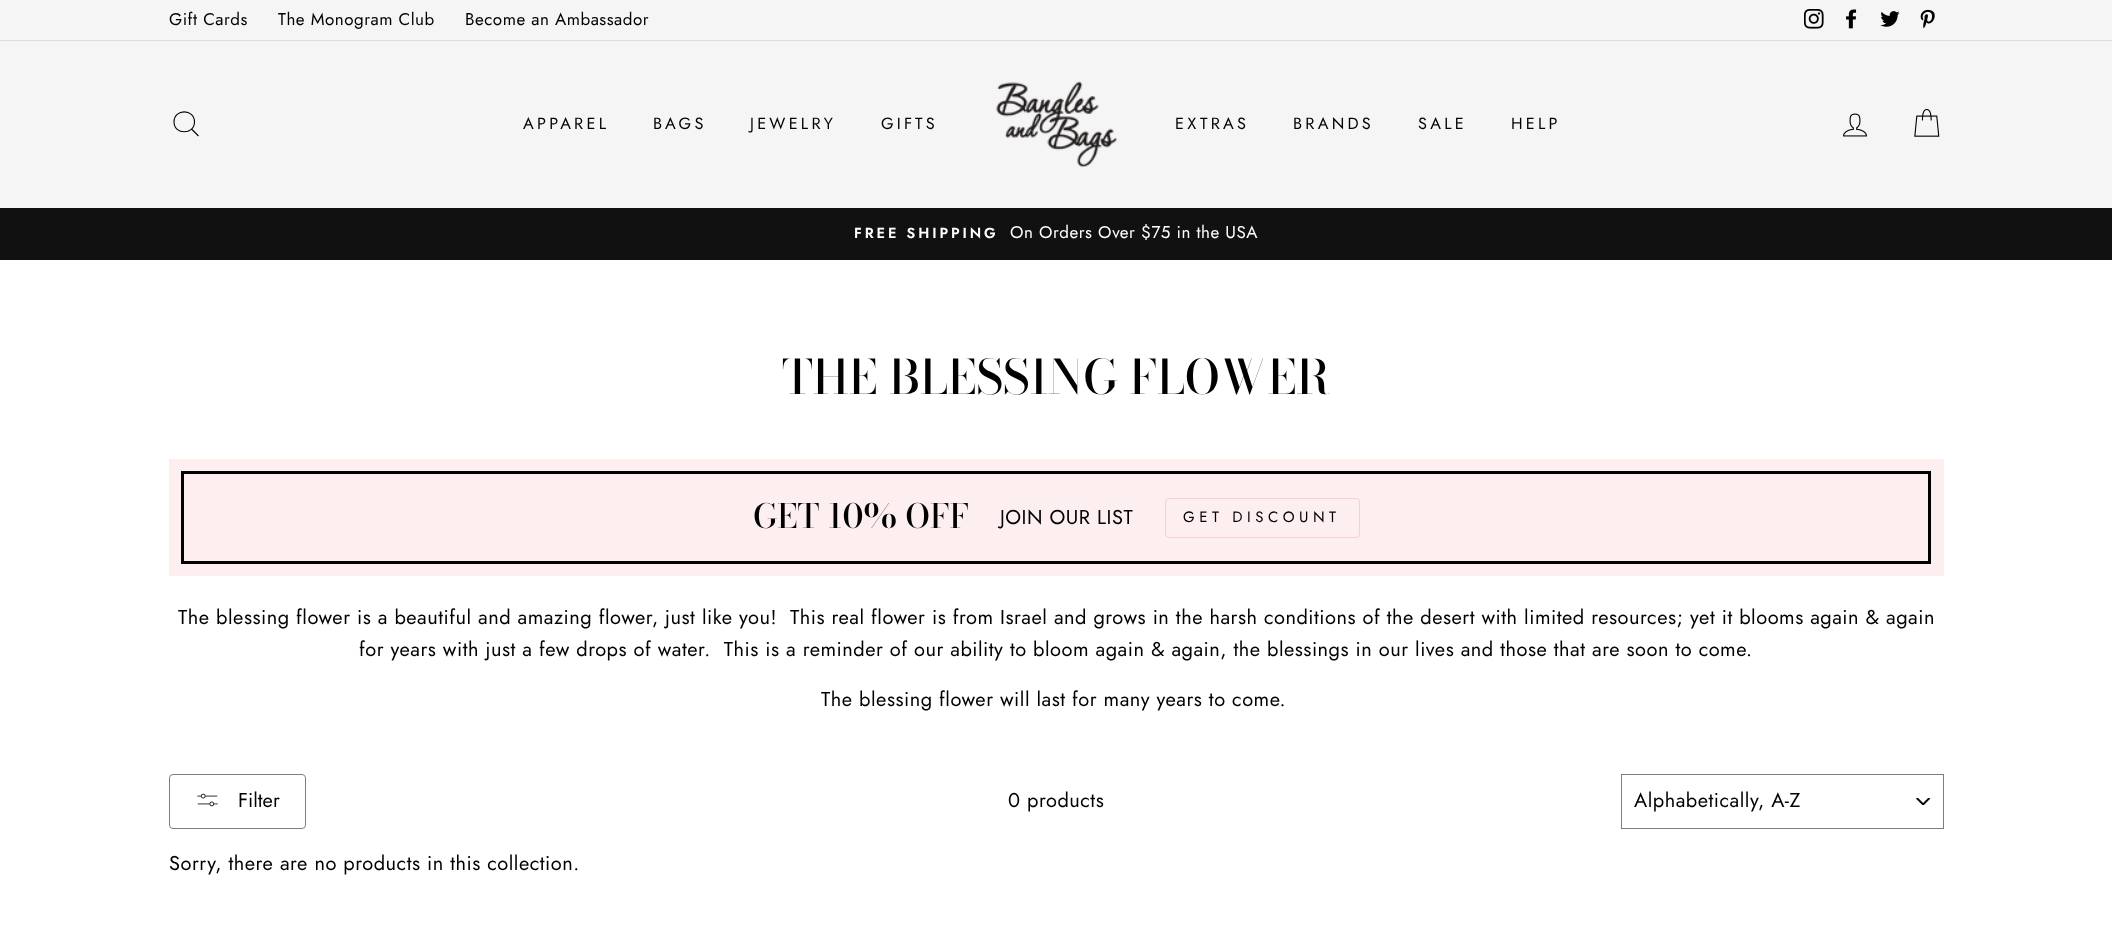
<!DOCTYPE html>
<meta charset="utf-8">
<style>body { margin: 0 } canvas { display: block }</style>
<canvas id="canvas" width="2112" height="950"></canvas>
<script type="module">
  const canvas = document.getElementById("canvas");
  const ctx = canvas.getContext("2d");
  ctx.miterLimit = 4;
  ctx.fontKerning = "normal";
  async function loadImage(src) {
    const img = new Image();
    img.src = src;
    await img.decode();
    return img;
  }

  ctx.fillStyle = "#ffffff";
  ctx.fillRect(0, 0, 2112, 950);
  ctx.fillStyle = "#f5f5f5";
  ctx.fillRect(0, 0, 2112, 40);
  ctx.letterSpacing = "0.5px";
  ctx.font = "17px Jost";
  ctx.fillStyle = "#000000";
  ctx.fillText("Gift Cards", 169, 25);
  ctx.fillText("The Monogram Club", 278, 25);
  ctx.fillText("Become an Ambassador", 465, 25);
  ctx.drawImage(await loadImage("img1.png"), 1804, 9, 20, 20);
  ctx.drawImage(await loadImage("img2.png"), 1846, 9, 11, 20);
  ctx.drawImage(await loadImage("img3.png"), 1880, 11, 20, 16);
  ctx.drawImage(await loadImage("img4.png"), 1920, 9, 15, 20);
  ctx.fillStyle = "#f5f5f5";
  ctx.fillRect(0, 41, 2112, 167);
  ctx.fillStyle = "#dddddd";
  ctx.fillRect(0, 40, 2112, 1);
  ctx.beginPath();
  ctx.moveTo(194.5, 122);
  ctx.bezierCurveTo(194.5, 135, 174, 135, 174, 122);
  ctx.bezierCurveTo(174, 108.5, 194.5, 108.5, 194.5, 122);
  ctx.closePath();
  ctx.moveTo(198.5, 136);
  ctx.lineTo(191.5, 129);
  ctx.strokeStyle = "#000000";
  ctx.lineWidth = 1.1;
  ctx.stroke();
  ctx.letterSpacing = "3.25px";
  ctx.font = "16.25px Jost";
  ctx.fillStyle = "#000000";
  ctx.fillText("APPAREL", 523, 129);
  ctx.fillText("BAGS", 653, 129);
  ctx.fillText("JEWELRY", 750, 129);
  ctx.fillText("GIFTS", 881, 129);
  ctx.drawImage(await loadImage("img5.png"), 996, 81, 121, 86);
  ctx.fillText("EXTRAS", 1175, 129);
  ctx.fillText("BRANDS", 1293, 129);
  ctx.fillText("SALE", 1418, 129);
  ctx.fillText("HELP", 1511, 129);
  ctx.drawImage(await loadImage("img6.png"), 1843, 113, 24, 24);
  ctx.drawImage(await loadImage("img7.png"), 1914, 109, 26, 28);
  ctx.fillStyle = "#111111";
  ctx.fillRect(0, 208, 2112, 52);
  ctx.letterSpacing = "2.9px";
  ctx.font = "600 14.5px Jost";
  ctx.fillStyle = "#ffffff";
  ctx.fillText("FREE SHIPPING", 854, 238);
  ctx.letterSpacing = "0.5px";
  ctx.font = "17px Jost";
  ctx.fillText("On Orders Over $75 in the USA", 1010, 238);
  ctx.letterSpacing = "0px";
  ctx.font = "500 47.5px Bodoni Moda";
  ctx.fillStyle = "#000000";
  ctx.fillText("THE BLESSING FLOWER", 782, 394);
  ctx.fillStyle = "#fdefef";
  ctx.fillRect(169, 459, 1775, 117);
  ctx.beginPath();
  ctx.roundRect(1165.5, 498.5, 194, 39, 3.5);
  ctx.strokeStyle = "#f9d0d0";
  ctx.lineWidth = 1;
  ctx.stroke();
  ctx.strokeStyle = "#000000";
  ctx.lineWidth = 3;
  ctx.strokeRect(182.5, 472.5, 1747, 90);
  ctx.font = "500 33.25px 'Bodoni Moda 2'";
  ctx.fillStyle = "#000000";
  ctx.fillText("GET 10% OFF", 753, 528);
  ctx.letterSpacing = "0.5px";
  ctx.font = "20px Jost";
  ctx.fillText("JOIN OUR LIST", 1000, 524);
  ctx.letterSpacing = "4.5px";
  ctx.font = "15px Jost";
  ctx.fillText("GET DISCOUNT", 1183, 522);
  ctx.letterSpacing = "0.5px";
  ctx.font = "20px Jost";
  ctx.fillText("The blessing flower is a beautiful and amazing flower, just like you!  This real flower is from Israel and grows in the harsh conditions of the desert with limited resources; yet it blooms again & again", 178, 624);
  ctx.fillText("for years with just a few drops of water.  This is a reminder of our ability to bloom again & again, the blessings in our lives and those that are soon to come.", 359, 656);
  ctx.fillText("The blessing flower will last for many years to come.", 821, 706);
  ctx.beginPath();
  ctx.roundRect(169.5, 774.5, 136, 54, 3.5);
  ctx.strokeStyle = "#7e7e7e";
  ctx.lineWidth = 1;
  ctx.stroke();
  ctx.drawImage(await loadImage("img8.png"), 197, 793, 21, 14);
  ctx.letterSpacing = "0px";
  ctx.fillText("Filter", 238, 807);
  ctx.letterSpacing = "0.5px";
  ctx.fillText("0 products", 1008, 807);
  ctx.drawImage(await loadImage("img9.png"), 1916, 798, 14, 7);
  ctx.strokeRect(1621.5, 774.5, 322, 54);
  ctx.fillText("Alphabetically, A-Z", 1634, 807);
  ctx.fillText("Sorry, there are no products in this collection.", 169, 870);
</script>
